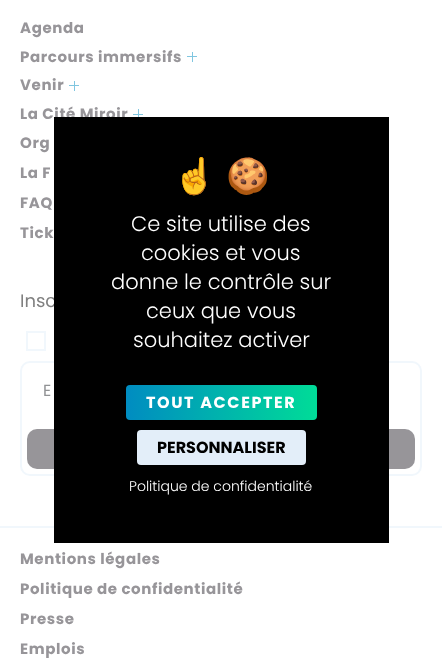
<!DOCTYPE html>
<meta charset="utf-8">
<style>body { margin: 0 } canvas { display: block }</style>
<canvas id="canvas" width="442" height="660"></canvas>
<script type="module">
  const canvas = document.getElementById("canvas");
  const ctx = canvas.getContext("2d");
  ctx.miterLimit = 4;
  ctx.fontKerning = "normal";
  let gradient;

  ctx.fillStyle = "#ffffff";
  ctx.fillRect(0, 0, 442, 660);
  ctx.letterSpacing = "0.6px";
  ctx.font = "bold 15px Poppins";
  ctx.fillStyle = "#979599";
  ctx.fillText("Agenda", 20, 33);
  ctx.fillText("Parcours immersifs", 20, 62);
  ctx.fillStyle = "#80c6e0";
  ctx.fillRect(192, 52, 1, 10);
  ctx.fillRect(187, 56, 10, 1);
  ctx.fillStyle = "#979599";
  ctx.fillText("Venir", 20, 90);
  ctx.fillStyle = "#80c6e0";
  ctx.fillRect(74, 81, 1, 10);
  ctx.fillRect(69, 85, 10, 1);
  ctx.fillStyle = "#979599";
  ctx.fillText("La Cité Miroir", 20, 119);
  ctx.fillStyle = "#80c6e0";
  ctx.fillRect(138, 109, 1, 10);
  ctx.fillRect(133, 114, 10, 1);
  ctx.fillStyle = "#979599";
  ctx.fillText("Org", 20, 148);
  ctx.fillText("La F", 20, 178);
  ctx.fillText("FAQ", 20, 208);
  ctx.fillText("Tick", 20, 238);
  ctx.letterSpacing = "0px";
  ctx.font = "18px Poppins";
  ctx.fillStyle = "#808080";
  ctx.fillText("Insc", 20, 307);
  ctx.strokeStyle = "#f1f7fc";
  ctx.lineWidth = 2;
  ctx.strokeRect(27, 332, 18, 18);
  ctx.beginPath();
  ctx.roundRect(21, 362, 400, 113, 9);
  ctx.stroke();
  ctx.font = "16px Poppins";
  ctx.fillStyle = "#909294";
  ctx.fillText("E", 43, 396);
  ctx.fillStyle = "#979599";
  ctx.beginPath();
  ctx.roundRect(27, 429, 388, 40, 10);
  ctx.fill();
  ctx.fillStyle = "#f1f7fc";
  ctx.fillRect(0, 526, 442, 2);
  ctx.letterSpacing = "0.6px";
  ctx.font = "bold 15px Poppins";
  ctx.fillStyle = "#979599";
  ctx.fillText("Mentions légales", 20, 564);
  ctx.fillText("Politique de confidentialité", 20, 594);
  ctx.fillText("Presse", 20, 624);
  ctx.fillText("Emplois", 20, 654);
  ctx.fillStyle = "#000000";
  ctx.fillRect(54, 117, 335, 426);
  ctx.letterSpacing = "0px";
  ctx.font = "35px Noto Color Emoji";
  ctx.fillStyle = "#ffffff";
  ctx.fillText("☝", 173, 188);
  ctx.fillText("🍪", 226, 188);
  ctx.font = "300 21px Poppins";
  ctx.fillText("Ce site utilise des", 131, 231);
  ctx.fillText("cookies et vous", 141, 260);
  ctx.fillText("donne le contrôle sur", 111, 289);
  ctx.fillText("ceux que vous", 146, 318);
  ctx.fillText("souhaitez activer", 133, 347);
  gradient = ctx.createLinearGradient(126, 403, 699, 403);
  gradient.addColorStop(0, "#008cc1");
  gradient.addColorStop(0.33, "#00db98");
  gradient.addColorStop(0.67, "#008cc1");
  gradient.addColorStop(1, "#008cc1");
  ctx.fillStyle = gradient;
  ctx.beginPath();
  ctx.roundRect(126, 385, 191, 35, 4);
  ctx.fill();
  ctx.letterSpacing = "1.6px";
  ctx.font = "bold 16px Poppins";
  ctx.fillStyle = "#ffffff";
  ctx.fillText("TOUT ACCEPTER", 146, 408);
  ctx.fillStyle = "#e3eef9";
  ctx.beginPath();
  ctx.roundRect(137, 430, 169, 35, 4);
  ctx.fill();
  ctx.letterSpacing = "0px";
  ctx.fillStyle = "#000000";
  ctx.fillText("PERSONNALISER", 157, 453);
  ctx.font = "300 14px Poppins";
  ctx.fillStyle = "#ffffff";
  ctx.fillText("Politique de confidentialité", 129, 491);
</script>
